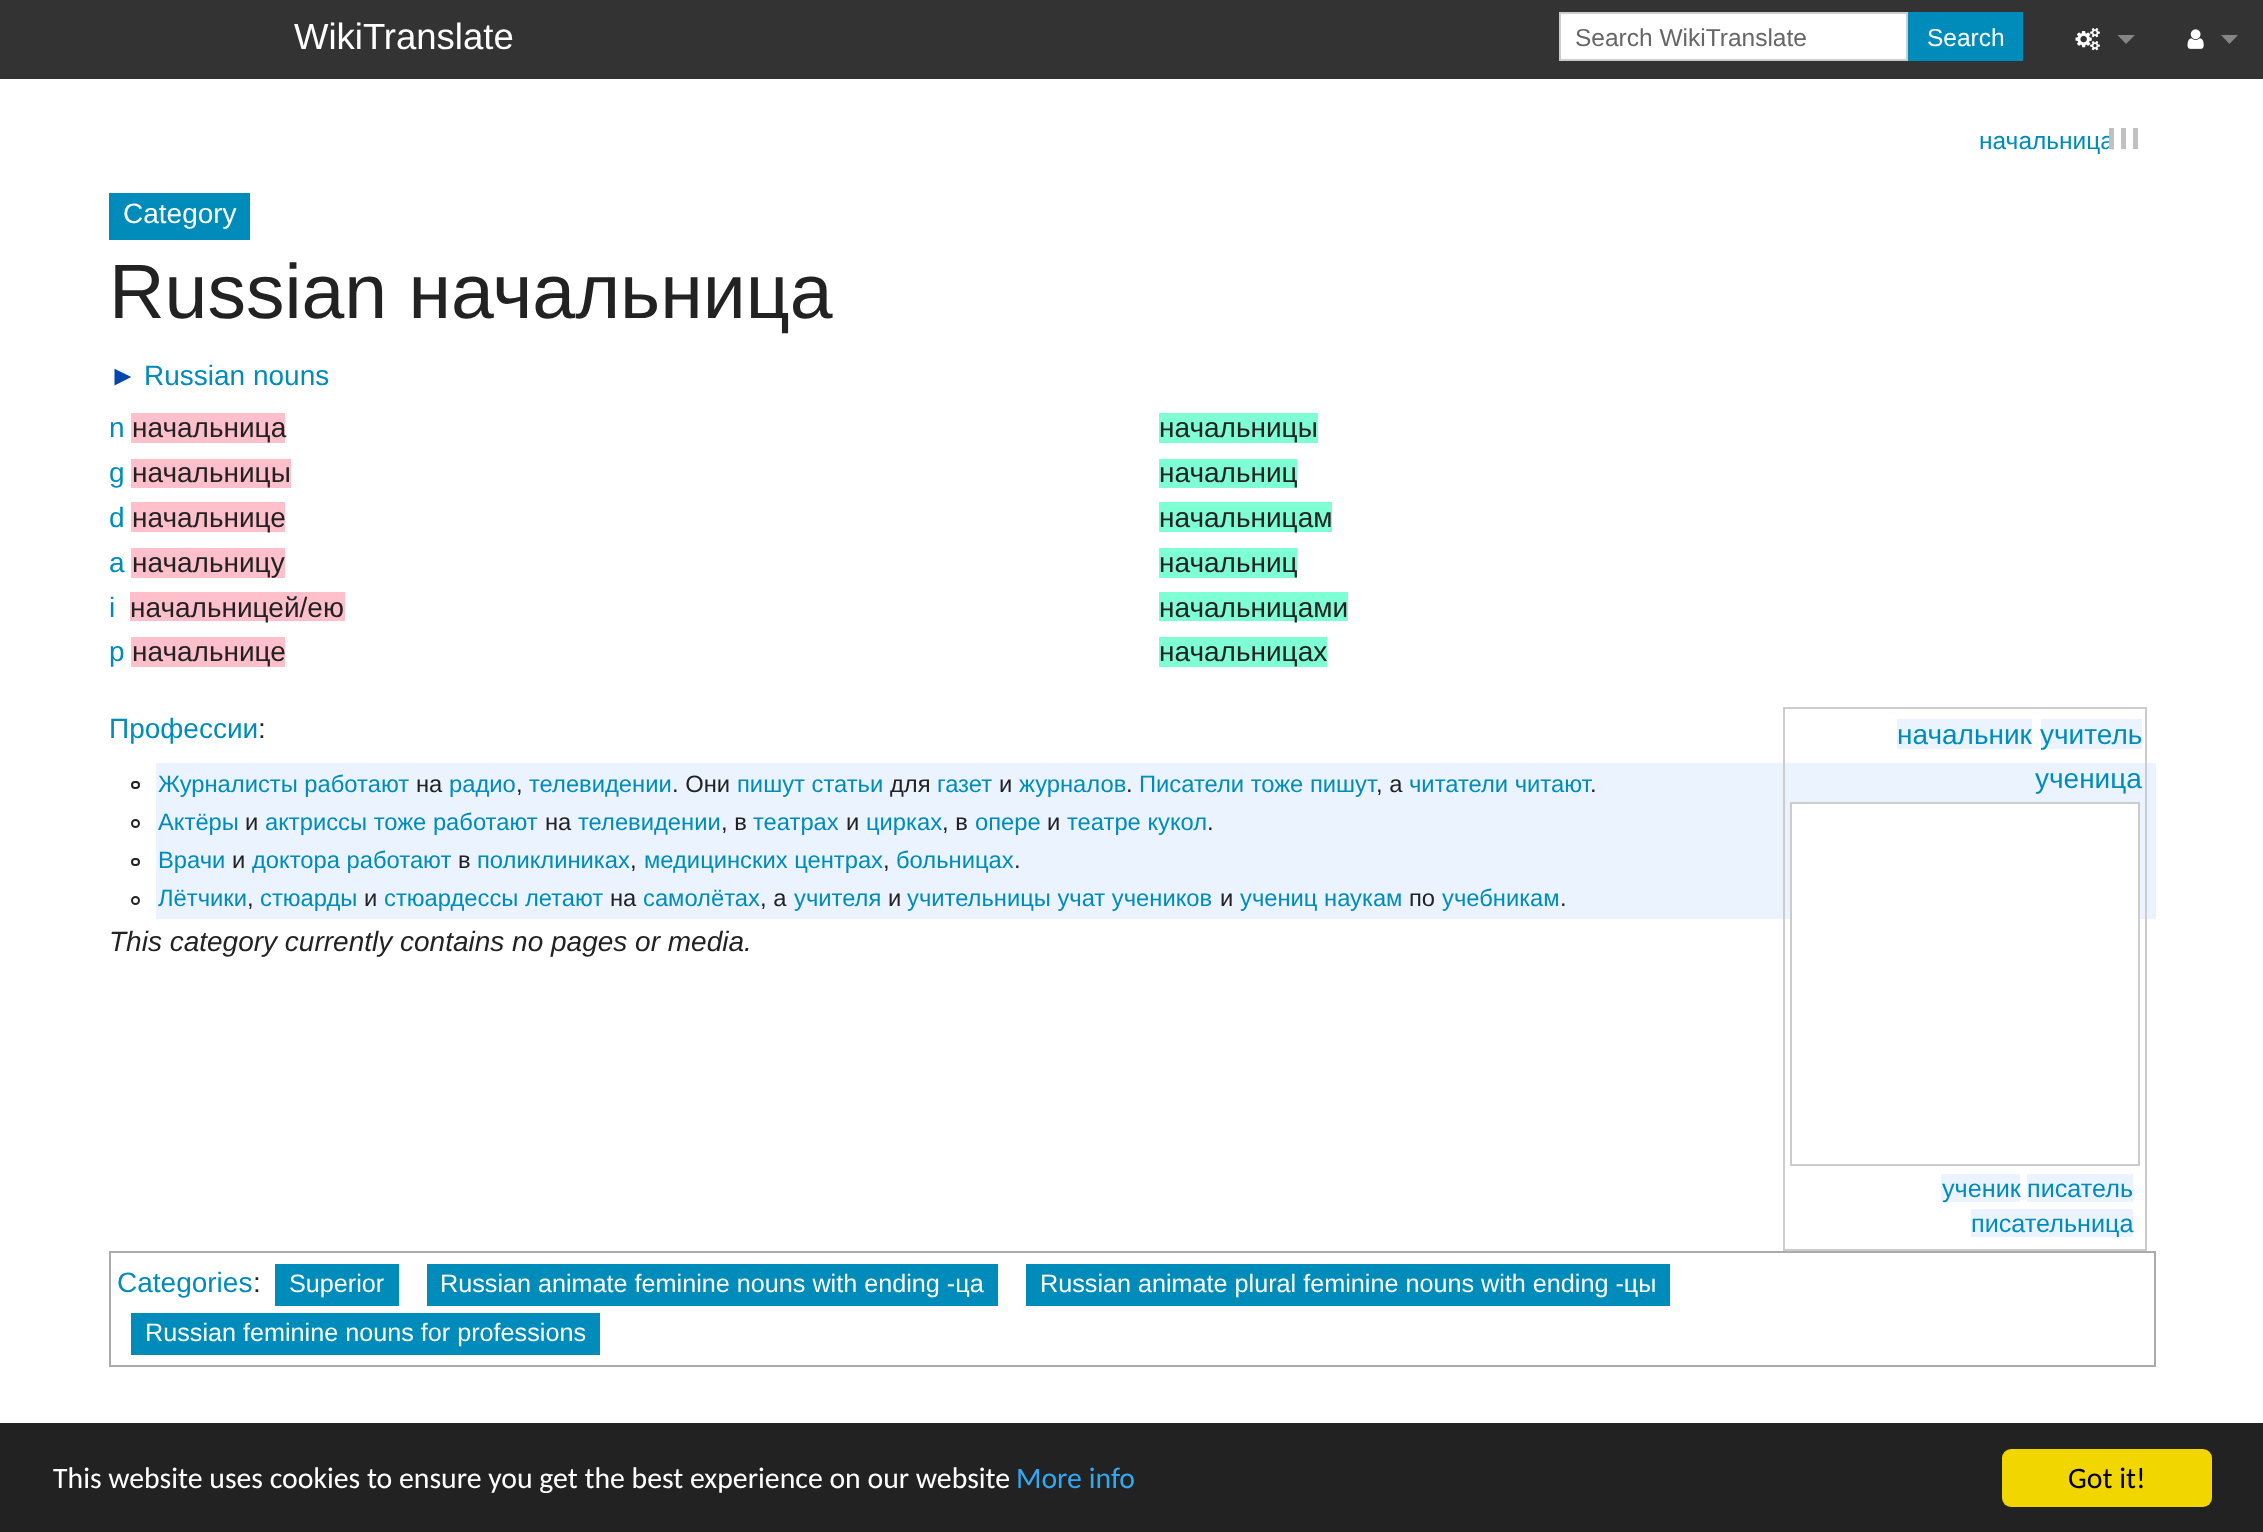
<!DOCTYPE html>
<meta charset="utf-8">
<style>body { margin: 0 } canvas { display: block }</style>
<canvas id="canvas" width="2263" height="1532"></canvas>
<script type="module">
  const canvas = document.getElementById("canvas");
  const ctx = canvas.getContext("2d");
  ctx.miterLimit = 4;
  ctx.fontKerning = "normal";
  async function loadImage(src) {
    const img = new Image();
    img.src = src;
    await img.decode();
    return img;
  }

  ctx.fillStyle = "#ffffff";
  ctx.fillRect(0, 0, 2263, 1532);
  ctx.fillStyle = "#333333";
  ctx.fillRect(0, 0, 2263, 79);
  ctx.font = "36.5px Liberation Sans";
  ctx.fillStyle = "#ffffff";
  ctx.fillText("WikiTranslate", 294, 49);
  ctx.beginPath();
  ctx.rect(1560, 13, 347, 47);
  ctx.fill();
  ctx.strokeStyle = "#cccccc";
  ctx.lineWidth = 2;
  ctx.stroke();
  ctx.font = "24.5px Liberation Sans";
  ctx.fillStyle = "#666666";
  ctx.fillText("Search WikiTranslate", 1575, 46);
  ctx.fillStyle = "#008cba";
  ctx.fillRect(1908, 12, 115, 49);
  ctx.fillStyle = "#ffffff";
  ctx.fillText("Search", 1927, 46);
  ctx.drawImage(await loadImage("img1.png"), 2075, 28, 25, 23);
  ctx.fillStyle = "#858585";
  ctx.beginPath();
  ctx.moveTo(2117.5, 35);
  ctx.lineTo(2135, 35);
  ctx.lineTo(2126, 44);
  ctx.closePath();
  ctx.fill();
  ctx.drawImage(await loadImage("img2.png"), 2187, 29, 17, 20);
  ctx.beginPath();
  ctx.moveTo(2221, 35);
  ctx.lineTo(2238, 35);
  ctx.lineTo(2229.5, 44);
  ctx.closePath();
  ctx.fill();
  ctx.fillStyle = "#008cba";
  ctx.fillText("начальница", 1979, 149);
  ctx.fillStyle = "#c0c0c0";
  ctx.fillRect(2121, 128, 5, 21);
  ctx.fillRect(2109, 128, 5, 21);
  ctx.fillRect(2133, 128, 5, 21);
  ctx.fillStyle = "#008cba";
  ctx.fillRect(109, 193, 141, 47);
  ctx.font = "28px Liberation Sans";
  ctx.fillStyle = "#ffffff";
  ctx.fillText("Category", 123, 223);
  ctx.font = "77px Liberation Sans";
  ctx.fillStyle = "#222222";
  ctx.fillText("Russian начальница", 109, 318);
  ctx.font = "28px Liberation Sans";
  ctx.fillStyle = "#0645ad";
  ctx.fillText("►", 109, 385);
  ctx.fillStyle = "#008cba";
  ctx.fillText("Russian nouns", 144, 385);
  ctx.fillText("n", 109, 437);
  ctx.fillStyle = "#ffc0cb";
  ctx.fillRect(131, 413, 154, 30);
  ctx.fillStyle = "#222222";
  ctx.fillText("начальница", 132, 437);
  ctx.fillStyle = "#008cba";
  ctx.fillText("g", 109, 482);
  ctx.fillStyle = "#ffc0cb";
  ctx.fillRect(131, 459, 160, 29);
  ctx.fillStyle = "#222222";
  ctx.fillText("начальницы", 132, 482);
  ctx.fillStyle = "#008cba";
  ctx.fillText("d", 109, 527);
  ctx.fillStyle = "#ffc0cb";
  ctx.fillRect(131, 502, 154, 30);
  ctx.fillStyle = "#222222";
  ctx.fillText("начальнице", 132, 527);
  ctx.fillStyle = "#008cba";
  ctx.fillText("a", 109, 572);
  ctx.fillStyle = "#ffc0cb";
  ctx.fillRect(131, 548, 154, 30);
  ctx.fillStyle = "#222222";
  ctx.fillText("начальницу", 132, 572);
  ctx.fillStyle = "#008cba";
  ctx.fillText("i", 109, 617);
  ctx.fillStyle = "#ffc0cb";
  ctx.fillRect(130, 592, 215, 29);
  ctx.fillStyle = "#222222";
  ctx.fillText("начальницей/ею", 130, 617);
  ctx.fillStyle = "#008cba";
  ctx.fillText("p", 109, 661);
  ctx.fillStyle = "#ffc0cb";
  ctx.fillRect(131, 637, 154, 30);
  ctx.fillStyle = "#222222";
  ctx.fillText("начальнице", 132, 661);
  ctx.fillStyle = "#7fffd4";
  ctx.fillRect(1159, 413, 159, 30);
  ctx.fillStyle = "#222222";
  ctx.fillText("начальницы", 1159, 437);
  ctx.fillStyle = "#7fffd4";
  ctx.fillRect(1159, 459, 138, 29);
  ctx.fillStyle = "#222222";
  ctx.fillText("начальниц", 1159, 482);
  ctx.fillStyle = "#7fffd4";
  ctx.fillRect(1159, 502, 173, 30);
  ctx.fillStyle = "#222222";
  ctx.fillText("начальницам", 1159, 527);
  ctx.fillStyle = "#7fffd4";
  ctx.fillRect(1159, 548, 138, 30);
  ctx.fillStyle = "#222222";
  ctx.fillText("начальниц", 1159, 572);
  ctx.fillStyle = "#7fffd4";
  ctx.fillRect(1159, 592, 189, 29);
  ctx.fillStyle = "#222222";
  ctx.fillText("начальницами", 1159, 617);
  ctx.fillStyle = "#7fffd4";
  ctx.fillRect(1159, 637, 168, 30);
  ctx.fillStyle = "#222222";
  ctx.fillText("начальницах", 1159, 661);
  ctx.fillStyle = "#008cba";
  ctx.fillText("Профессии", 109, 738);
  ctx.fillStyle = "#222222";
  ctx.fillText(":", 258, 738);
  ctx.fillStyle = "#eaf3ff";
  ctx.fillRect(156, 763, 2000, 156);
  ctx.strokeRect(1784, 708, 362, 542);
  ctx.fillRect(1897, 719, 135, 30);
  ctx.fillStyle = "#008cba";
  ctx.fillText("начальник", 1897, 744);
  ctx.fillStyle = "#eaf3ff";
  ctx.fillRect(2041, 719, 101, 30);
  ctx.fillStyle = "#008cba";
  ctx.fillText("учитель", 2040, 744);
  ctx.fillText("ученица", 2035, 788);
  ctx.fillStyle = "#ffffff";
  ctx.fillRect(1792, 804, 346, 115);
  ctx.strokeRect(1791, 803, 348, 362);
  ctx.fillStyle = "#eaf3ff";
  ctx.fillRect(1941, 1174, 79, 28);
  ctx.font = "25.2px Liberation Sans";
  ctx.fillStyle = "#008cba";
  ctx.fillText("ученик", 1942, 1197);
  ctx.fillStyle = "#eaf3ff";
  ctx.fillRect(2027, 1174, 106, 28);
  ctx.fillStyle = "#008cba";
  ctx.fillText("писатель", 2027, 1197);
  ctx.fillStyle = "#eaf3ff";
  ctx.fillRect(1971, 1209, 162, 28);
  ctx.fillStyle = "#008cba";
  ctx.fillText("писательница", 1971, 1232);
  ctx.beginPath();
  ctx.roundRect(132, 782, 7, 6, 3);
  ctx.strokeStyle = "#222222";
  ctx.stroke();
  ctx.font = "23.75px Liberation Sans";
  ctx.fillText("Журналисты работают", 158, 792);
  ctx.fillStyle = "#222222";
  ctx.fillText("на", 416, 792);
  ctx.fillStyle = "#008cba";
  ctx.fillText("радио", 449, 792);
  ctx.fillText("телевидении", 529, 792);
  ctx.fillStyle = "#222222";
  ctx.fillText(". Они", 672, 792);
  ctx.fillStyle = "#008cba";
  ctx.fillText("пишут статьи", 737, 792);
  ctx.fillStyle = "#222222";
  ctx.fillText("для", 890, 792);
  ctx.fillStyle = "#008cba";
  ctx.fillText("газет", 937, 792);
  ctx.fillStyle = "#222222";
  ctx.fillText("и", 999, 792);
  ctx.fillStyle = "#008cba";
  ctx.fillText("журналов", 1019, 792);
  ctx.fillText("Писатели тоже пишут", 1139, 792);
  ctx.fillStyle = "#222222";
  ctx.fillText(", а", 1376, 792);
  ctx.fillStyle = "#008cba";
  ctx.fillText("читатели читают", 1409, 792);
  ctx.fillStyle = "#222222";
  ctx.fillText(",", 516, 792);
  ctx.fillText(".", 1126, 792);
  ctx.fillText(".", 1590, 792);
  ctx.beginPath();
  ctx.arc(135.5, 823.5, 3.5, 0, Math.PI * 2);
  ctx.stroke();
  ctx.fillStyle = "#008cba";
  ctx.fillText("Актёры", 158, 830);
  ctx.fillStyle = "#222222";
  ctx.fillText("и", 245, 830);
  ctx.fillStyle = "#008cba";
  ctx.fillText("актриссы тоже работают", 265, 830);
  ctx.fillStyle = "#222222";
  ctx.fillText("на", 545, 830);
  ctx.fillStyle = "#008cba";
  ctx.fillText("телевидении", 578, 830);
  ctx.fillStyle = "#222222";
  ctx.fillText(", в", 721, 830);
  ctx.fillStyle = "#008cba";
  ctx.fillText("театрах", 753, 830);
  ctx.fillStyle = "#222222";
  ctx.fillText("и", 846, 830);
  ctx.fillStyle = "#008cba";
  ctx.fillText("цирках", 866, 830);
  ctx.fillStyle = "#222222";
  ctx.fillText(", в", 942, 830);
  ctx.fillStyle = "#008cba";
  ctx.fillText("опере", 975, 830);
  ctx.fillStyle = "#222222";
  ctx.fillText("и", 1047, 830);
  ctx.fillStyle = "#008cba";
  ctx.fillText("театре кукол", 1067, 830);
  ctx.fillStyle = "#222222";
  ctx.fillText(".", 1207, 830);
  ctx.beginPath();
  ctx.roundRect(132, 859, 7, 6, 3);
  ctx.stroke();
  ctx.fillStyle = "#008cba";
  ctx.fillText("Врачи", 158, 868);
  ctx.fillStyle = "#222222";
  ctx.fillText("и", 232, 868);
  ctx.fillStyle = "#008cba";
  ctx.fillText("доктора работают", 252, 868);
  ctx.fillStyle = "#222222";
  ctx.fillText("в", 458, 868);
  ctx.fillStyle = "#008cba";
  ctx.fillText("поликлиниках", 477, 868);
  ctx.fillText("медицинских центрах", 644, 868);
  ctx.fillText("больницах", 896, 868);
  ctx.fillStyle = "#222222";
  ctx.fillText(",", 630, 868);
  ctx.fillText(",", 883, 868);
  ctx.fillText(".", 1014, 868);
  ctx.beginPath();
  ctx.arc(135.5, 900.5, 3.5, 0, Math.PI * 2);
  ctx.stroke();
  ctx.fillStyle = "#008cba";
  ctx.fillText("Лётчики", 158, 906);
  ctx.fillText("стюарды", 260, 906);
  ctx.fillStyle = "#222222";
  ctx.fillText("и", 364, 906);
  ctx.fillStyle = "#008cba";
  ctx.fillText("стюардессы летают", 384, 906);
  ctx.fillStyle = "#222222";
  ctx.fillText("на", 610, 906);
  ctx.fillStyle = "#008cba";
  ctx.fillText("самолётах", 643, 906);
  ctx.fillStyle = "#222222";
  ctx.fillText(", а", 760, 906);
  ctx.fillStyle = "#008cba";
  ctx.fillText("учителя", 794, 906);
  ctx.fillStyle = "#222222";
  ctx.fillText("и", 888, 906);
  ctx.fillStyle = "#008cba";
  ctx.fillText("учительницы учат учеников", 907, 906);
  ctx.fillStyle = "#222222";
  ctx.fillText("и", 1220, 906);
  ctx.fillStyle = "#008cba";
  ctx.fillText("учениц наукам", 1240, 906);
  ctx.fillStyle = "#222222";
  ctx.fillText("по", 1409, 906);
  ctx.fillStyle = "#008cba";
  ctx.fillText("учебникам", 1442, 906);
  ctx.fillStyle = "#222222";
  ctx.fillText(",", 247, 906);
  ctx.fillText(".", 1560, 906);
  ctx.font = "italic 28px Liberation Sans";
  ctx.fillText("This category currently contains no pages or media.", 109, 951);
  ctx.strokeStyle = "#aaaaaa";
  ctx.strokeRect(110, 1252, 2045, 114);
  ctx.font = "28px Liberation Sans";
  ctx.fillStyle = "#008cba";
  ctx.fillText("Categories", 117, 1292);
  ctx.fillRect(275, 1264, 124, 42);
  ctx.font = "25.2px Liberation Sans";
  ctx.fillStyle = "#ffffff";
  ctx.fillText("Superior", 289, 1292);
  ctx.fillStyle = "#008cba";
  ctx.fillRect(427, 1264, 571, 42);
  ctx.fillStyle = "#ffffff";
  ctx.fillText("Russian animate feminine nouns with ending -ца", 440, 1292);
  ctx.fillStyle = "#008cba";
  ctx.fillRect(1026, 1264, 644, 42);
  ctx.fillStyle = "#ffffff";
  ctx.fillText("Russian animate plural feminine nouns with ending -цы", 1040, 1292);
  ctx.fillStyle = "#008cba";
  ctx.fillRect(131, 1313, 469, 42);
  ctx.fillStyle = "#ffffff";
  ctx.fillText("Russian feminine nouns for professions", 145, 1341);
  ctx.font = "28px Liberation Sans";
  ctx.fillStyle = "#222222";
  ctx.fillText(":", 253, 1292);
  ctx.fillRect(0, 1423, 2263, 109);
  ctx.font = "29.75px Carlito";
  ctx.fillStyle = "#ffffff";
  ctx.fillText("This website uses cookies to ensure you get the best experience on our website", 53, 1488);
  ctx.fillStyle = "#31a8f0";
  ctx.fillText("More info", 1016, 1488);
  ctx.fillStyle = "#f1d600";
  ctx.beginPath();
  ctx.roundRect(2002, 1449, 210, 58, 9);
  ctx.fill();
  ctx.fillStyle = "#000000";
  ctx.fillText("Got it!", 2068, 1488);
</script>
